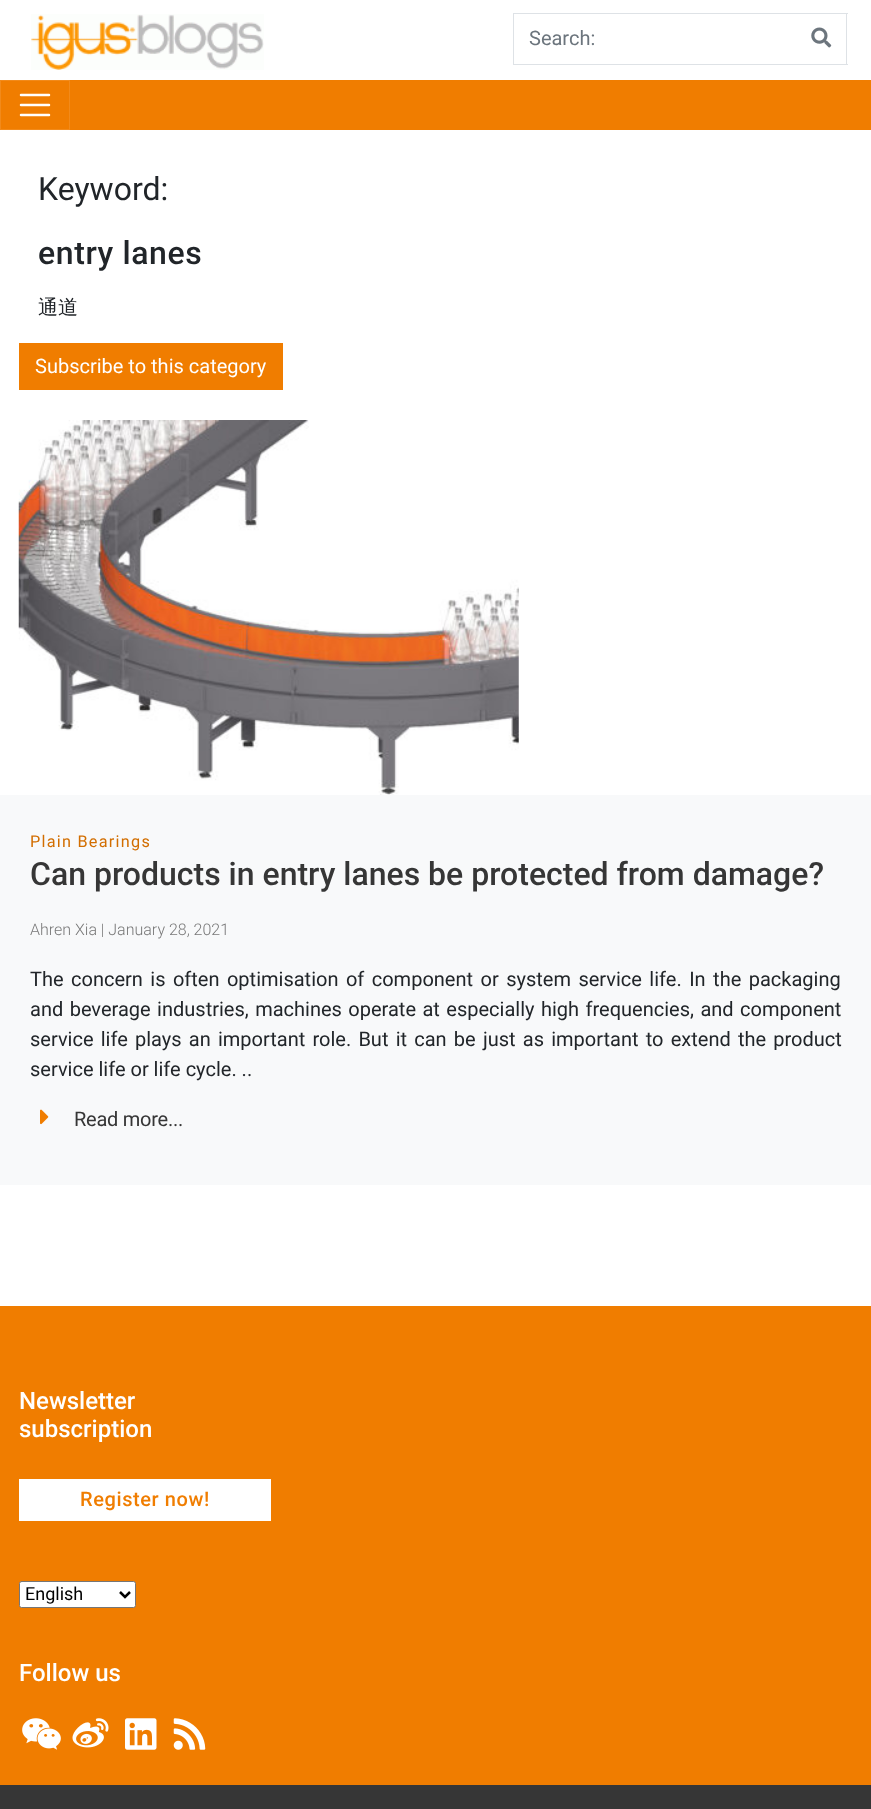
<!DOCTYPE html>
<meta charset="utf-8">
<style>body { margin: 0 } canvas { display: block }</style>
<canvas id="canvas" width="871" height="1809"></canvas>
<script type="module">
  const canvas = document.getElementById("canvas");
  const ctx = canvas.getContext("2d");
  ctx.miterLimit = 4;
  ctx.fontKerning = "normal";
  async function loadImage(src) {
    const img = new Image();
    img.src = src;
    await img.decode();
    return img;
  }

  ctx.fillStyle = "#ffffff";
  ctx.fillRect(0, 0, 871, 1809);
  ctx.drawImage(await loadImage("img1.png"), 31, 14, 233, 56);
  ctx.fillStyle = "#dee2e6";
  ctx.fillRect(513, 13, 335, 1);
  ctx.fillRect(513, 64, 285, 1);
  ctx.fillRect(513, 13, 1, 52);
  ctx.font = "20px Roboto";
  ctx.fillStyle = "#6c757d";
  ctx.fillText("Search:", 529, 45);
  ctx.fillStyle = "#dee2e6";
  ctx.fillRect(846, 13, 1, 52);
  ctx.fillRect(796, 64, 52, 1);
  ctx.drawImage(await loadImage("img2.png"), 811, 27, 21, 21);
  ctx.fillStyle = "#f07d00";
  ctx.fillRect(1, 80, 870, 50);
  ctx.strokeStyle = "#f28a1a";
  ctx.strokeRect(0.5, 80.5, 69, 49);
  ctx.beginPath();
  ctx.moveTo(21, 95);
  ctx.lineTo(49, 95);
  ctx.moveTo(21, 105);
  ctx.lineTo(49, 105);
  ctx.moveTo(21, 115);
  ctx.lineTo(49, 115);
  ctx.strokeStyle = "#ffffff";
  ctx.lineWidth = 2.5;
  ctx.lineCap = "round";
  ctx.stroke();
  ctx.font = "32px Roboto";
  ctx.fillStyle = "#212529";
  ctx.fillText("Keyword:", 38, 200);
  ctx.letterSpacing = "0.6px";
  ctx.font = "500 32px Roboto";
  ctx.fillText("entry lanes", 38, 264);
  ctx.letterSpacing = "0px";
  ctx.font = "500 20px WenQuanYi Zen Hei";
  ctx.fillText("通道", 38, 314);
  ctx.fillStyle = "#f07d00";
  ctx.fillRect(19, 343, 264, 47);
  ctx.font = "20px Roboto";
  ctx.fillStyle = "#ffffff";
  ctx.fillText("Subscribe to this category", 35, 373);
  ctx.drawImage(await loadImage("img3.png"), 18, 420, 501, 375);
  ctx.fillStyle = "#f8f9fa";
  ctx.fillRect(0, 795, 871, 390);
  ctx.letterSpacing = "1.25px";
  ctx.font = "16.25px Roboto";
  ctx.fillStyle = "#d26e00";
  ctx.fillText("Plain Bearings", 30, 847);
  ctx.letterSpacing = "0px";
  ctx.font = "500 32px Roboto";
  ctx.fillStyle = "#363636";
  ctx.fillText("Can products in entry lanes be protected from damage?", 30, 885);
  ctx.font = "300 16px Roboto";
  ctx.fillStyle = "#787878";
  ctx.fillText("Ahren Xia | January 28, 2021", 30, 935);
  ctx.wordSpacing = "2.5px";
  ctx.font = "20px Roboto";
  ctx.fillStyle = "#212529";
  ctx.fillText("The concern is often optimisation of component or system service life. In the packaging", 30, 986);
  ctx.wordSpacing = "1.5px";
  ctx.fillText("and beverage industries, machines operate at especially high frequencies, and component", 30, 1016);
  ctx.wordSpacing = "2.25px";
  ctx.fillText("service life plays an important role. But it can be just as important to extend the product", 30, 1046);
  ctx.wordSpacing = "0px";
  ctx.fillText("service life or life cycle. ..", 30, 1076);
  ctx.drawImage(await loadImage("img4.png"), 40, 1109, 9, 16);
  ctx.letterSpacing = "-0.25px";
  ctx.fillStyle = "#363636";
  ctx.fillText("Read more...", 74, 1126);
  ctx.fillStyle = "#f07d00";
  ctx.fillRect(0, 1306, 871, 479);
  ctx.letterSpacing = "0px";
  ctx.font = "500 24px Roboto";
  ctx.fillStyle = "#ffffff";
  ctx.fillText("Newsletter", 19, 1409);
  ctx.fillText("subscription", 19, 1437);
  ctx.fillRect(19, 1479, 252, 42);
  ctx.letterSpacing = "0.6px";
  ctx.font = "500 20px Roboto";
  ctx.fillStyle = "#f07d00";
  ctx.fillText("Register now!", 80, 1506);
  ctx.fillStyle = "#ffffff";
  ctx.beginPath();
  ctx.roundRect(19.5, 1581.5, 116, 26, 2);
  ctx.fill();
  ctx.strokeStyle = "#767676";
  ctx.lineWidth = 1;
  ctx.stroke();
  ctx.beginPath();
  ctx.moveTo(120, 1592);
  ctx.lineTo(125, 1597);
  ctx.lineTo(130, 1592);
  ctx.strokeStyle = "#000000";
  ctx.lineWidth = 2.5;
  ctx.lineCap = "butt";
  ctx.stroke();
  ctx.letterSpacing = "0px";
  ctx.font = "18px Roboto";
  ctx.fillStyle = "#000000";
  ctx.fillText("English", 25, 1600);
  ctx.font = "500 24px Roboto";
  ctx.fillStyle = "#ffffff";
  ctx.fillText("Follow us", 19, 1681);
  ctx.drawImage(await loadImage("img5.png"), 22, 1718, 39, 32);
  ctx.drawImage(await loadImage("img6.png"), 72, 1718, 37, 30);
  ctx.drawImage(await loadImage("img7.png"), 125, 1718, 32, 32);
  ctx.drawImage(await loadImage("img8.png"), 173, 1718, 33, 32);
  ctx.fillStyle = "#363636";
  ctx.fillRect(0, 1785, 871, 24);
</script>
